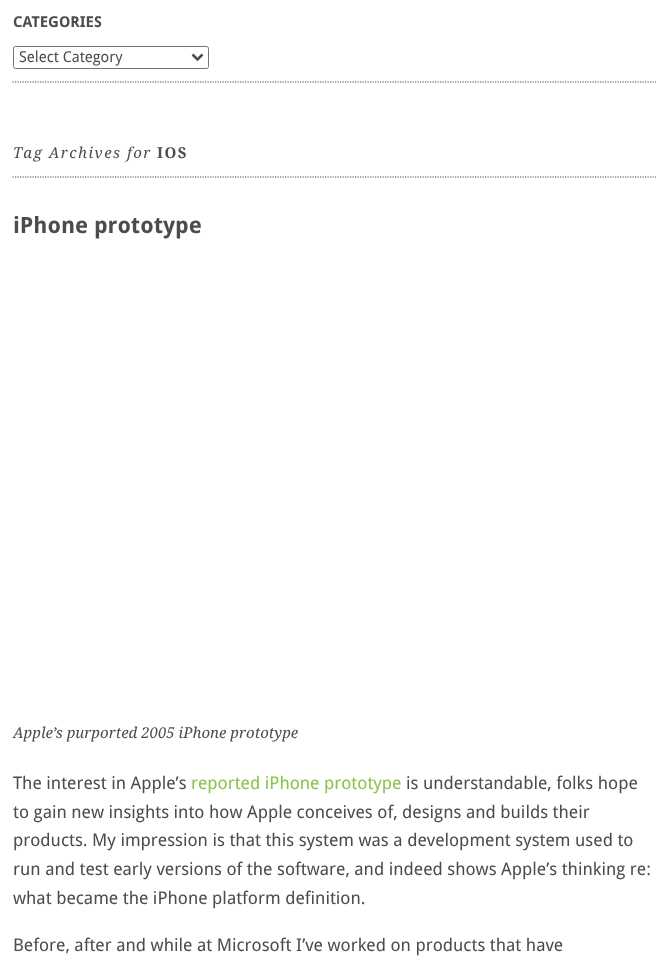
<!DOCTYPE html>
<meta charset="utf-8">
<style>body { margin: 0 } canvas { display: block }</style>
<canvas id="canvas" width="668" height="960"></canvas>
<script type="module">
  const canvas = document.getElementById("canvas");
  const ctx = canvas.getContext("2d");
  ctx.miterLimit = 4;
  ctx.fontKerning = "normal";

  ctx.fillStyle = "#ffffff";
  ctx.fillRect(0, 0, 668, 960);
  ctx.beginPath();
  ctx.moveTo(12.5, 82);
  ctx.lineTo(656, 82);
  ctx.strokeStyle = "#4c4c4c";
  ctx.lineWidth = 1.2;
  ctx.setLineDash([1.25, 1.25]);
  ctx.stroke();
  ctx.font = "bold 15px Droid Sans";
  ctx.fillStyle = "#4c4c4c";
  ctx.fillText("CATEGORIES", 13, 27);
  ctx.beginPath();
  ctx.roundRect(13.5, 46.5, 195, 22, 2);
  ctx.strokeStyle = "#767676";
  ctx.lineWidth = 1;
  ctx.setLineDash([]);
  ctx.stroke();
  ctx.beginPath();
  ctx.moveTo(192.5, 54.5);
  ctx.lineTo(197.5, 59.5);
  ctx.lineTo(202.5, 54.5);
  ctx.strokeStyle = "#4c4c4c";
  ctx.lineWidth = 2.5;
  ctx.stroke();
  ctx.font = "15px Droid Sans";
  ctx.fillText("Select Category", 19, 62);
  ctx.beginPath();
  ctx.moveTo(12.5, 177);
  ctx.lineTo(656, 177);
  ctx.lineWidth = 1.2;
  ctx.setLineDash([1.25, 1.25]);
  ctx.stroke();
  ctx.letterSpacing = "1.5px";
  ctx.font = "italic 15px Droid Serif";
  ctx.fillText("Tag Archives for", 13, 158);
  ctx.font = "bold 15px Droid Serif";
  ctx.fillText("IOS", 157, 158);
  ctx.letterSpacing = "0px";
  ctx.font = "bold 22.5px Droid Sans";
  ctx.fillText("iPhone prototype", 13, 233);
  ctx.font = "italic 15px Droid Serif";
  ctx.fillText("Apple’s purported 2005 iPhone prototype", 13, 738);
  ctx.font = "17.5px Droid Sans";
  ctx.fillText("The interest in Apple’s", 13, 789);
  ctx.fillStyle = "#88c34b";
  ctx.fillText("reported iPhone prototype", 191, 789);
  ctx.fillStyle = "#4c4c4c";
  ctx.fillText("is understandable, folks hope", 406, 789);
  ctx.fillText("to gain new insights into how Apple conceives of, designs and builds their", 13, 818);
  ctx.fillText("products. My impression is that this system was a development system used to", 13, 846);
  ctx.fillText("run and test early versions of the software, and indeed shows Apple’s thinking re:", 13, 875);
  ctx.fillText("what became the iPhone platform definition.", 13, 904);
  ctx.fillText("Before, after and while at Microsoft I’ve worked on products that have", 13, 951);
</script>
